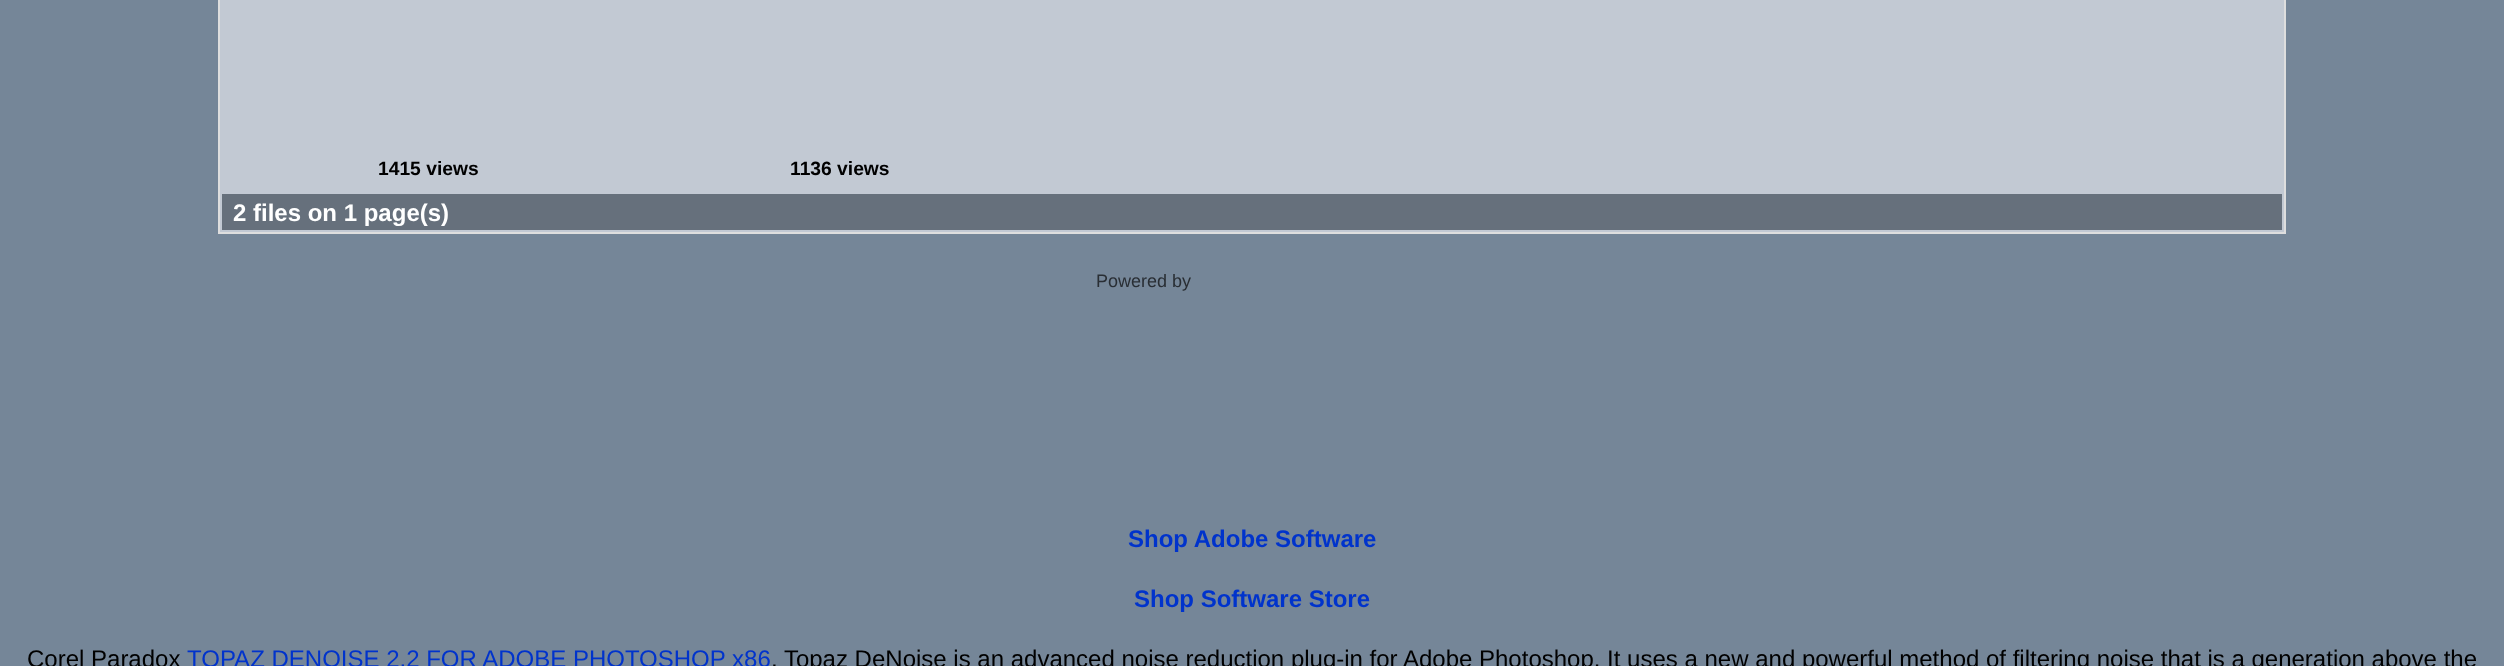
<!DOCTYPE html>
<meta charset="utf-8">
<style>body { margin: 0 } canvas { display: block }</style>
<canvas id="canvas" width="2504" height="666"></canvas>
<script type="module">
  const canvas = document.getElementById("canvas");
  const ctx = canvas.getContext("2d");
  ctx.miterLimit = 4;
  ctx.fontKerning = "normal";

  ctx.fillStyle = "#758698";
  ctx.fillRect(0, 0, 2504, 666);
  ctx.fillStyle = "#c2c9d3";
  ctx.beginPath();
  ctx.rect(219, -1, 2066, 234);
  ctx.fill();
  ctx.strokeStyle = "#dedede";
  ctx.lineWidth = 2;
  ctx.stroke();
  ctx.font = "bold 19.25px Liberation Sans";
  ctx.fillStyle = "#000000";
  ctx.fillText("1415 views", 378, 175);
  ctx.fillText("1136 views", 790, 175);
  ctx.fillStyle = "#66707c";
  ctx.fillRect(222, 194, 2060, 36);
  ctx.font = "bold 24px Liberation Sans";
  ctx.fillStyle = "#ffffff";
  ctx.fillText("2 files on 1 page(s)", 233, 221);
  ctx.font = "18px Liberation Sans";
  ctx.fillStyle = "#292e34";
  ctx.fillText("Powered by", 1096, 287);
  ctx.font = "bold 24px Liberation Sans";
  ctx.fillStyle = "#0033cc";
  ctx.fillText("Shop Adobe Software", 1128, 547);
  ctx.fillText("Shop Software Store", 1134, 607);
  ctx.font = "24px Liberation Sans";
  ctx.fillStyle = "#000000";
  ctx.fillText("Corel Paradox", 27, 667);
  ctx.fillStyle = "#0033cc";
  ctx.fillText("TOPAZ DENOISE 2.2 FOR ADOBE PHOTOSHOP x86", 187, 667);
  ctx.fillStyle = "#000000";
  ctx.fillText(", Topaz DeNoise is an advanced noise reduction plug-in for Adobe Photoshop. It uses a new and powerful method of filtering noise that is a generation above the", 771, 667);
</script>
